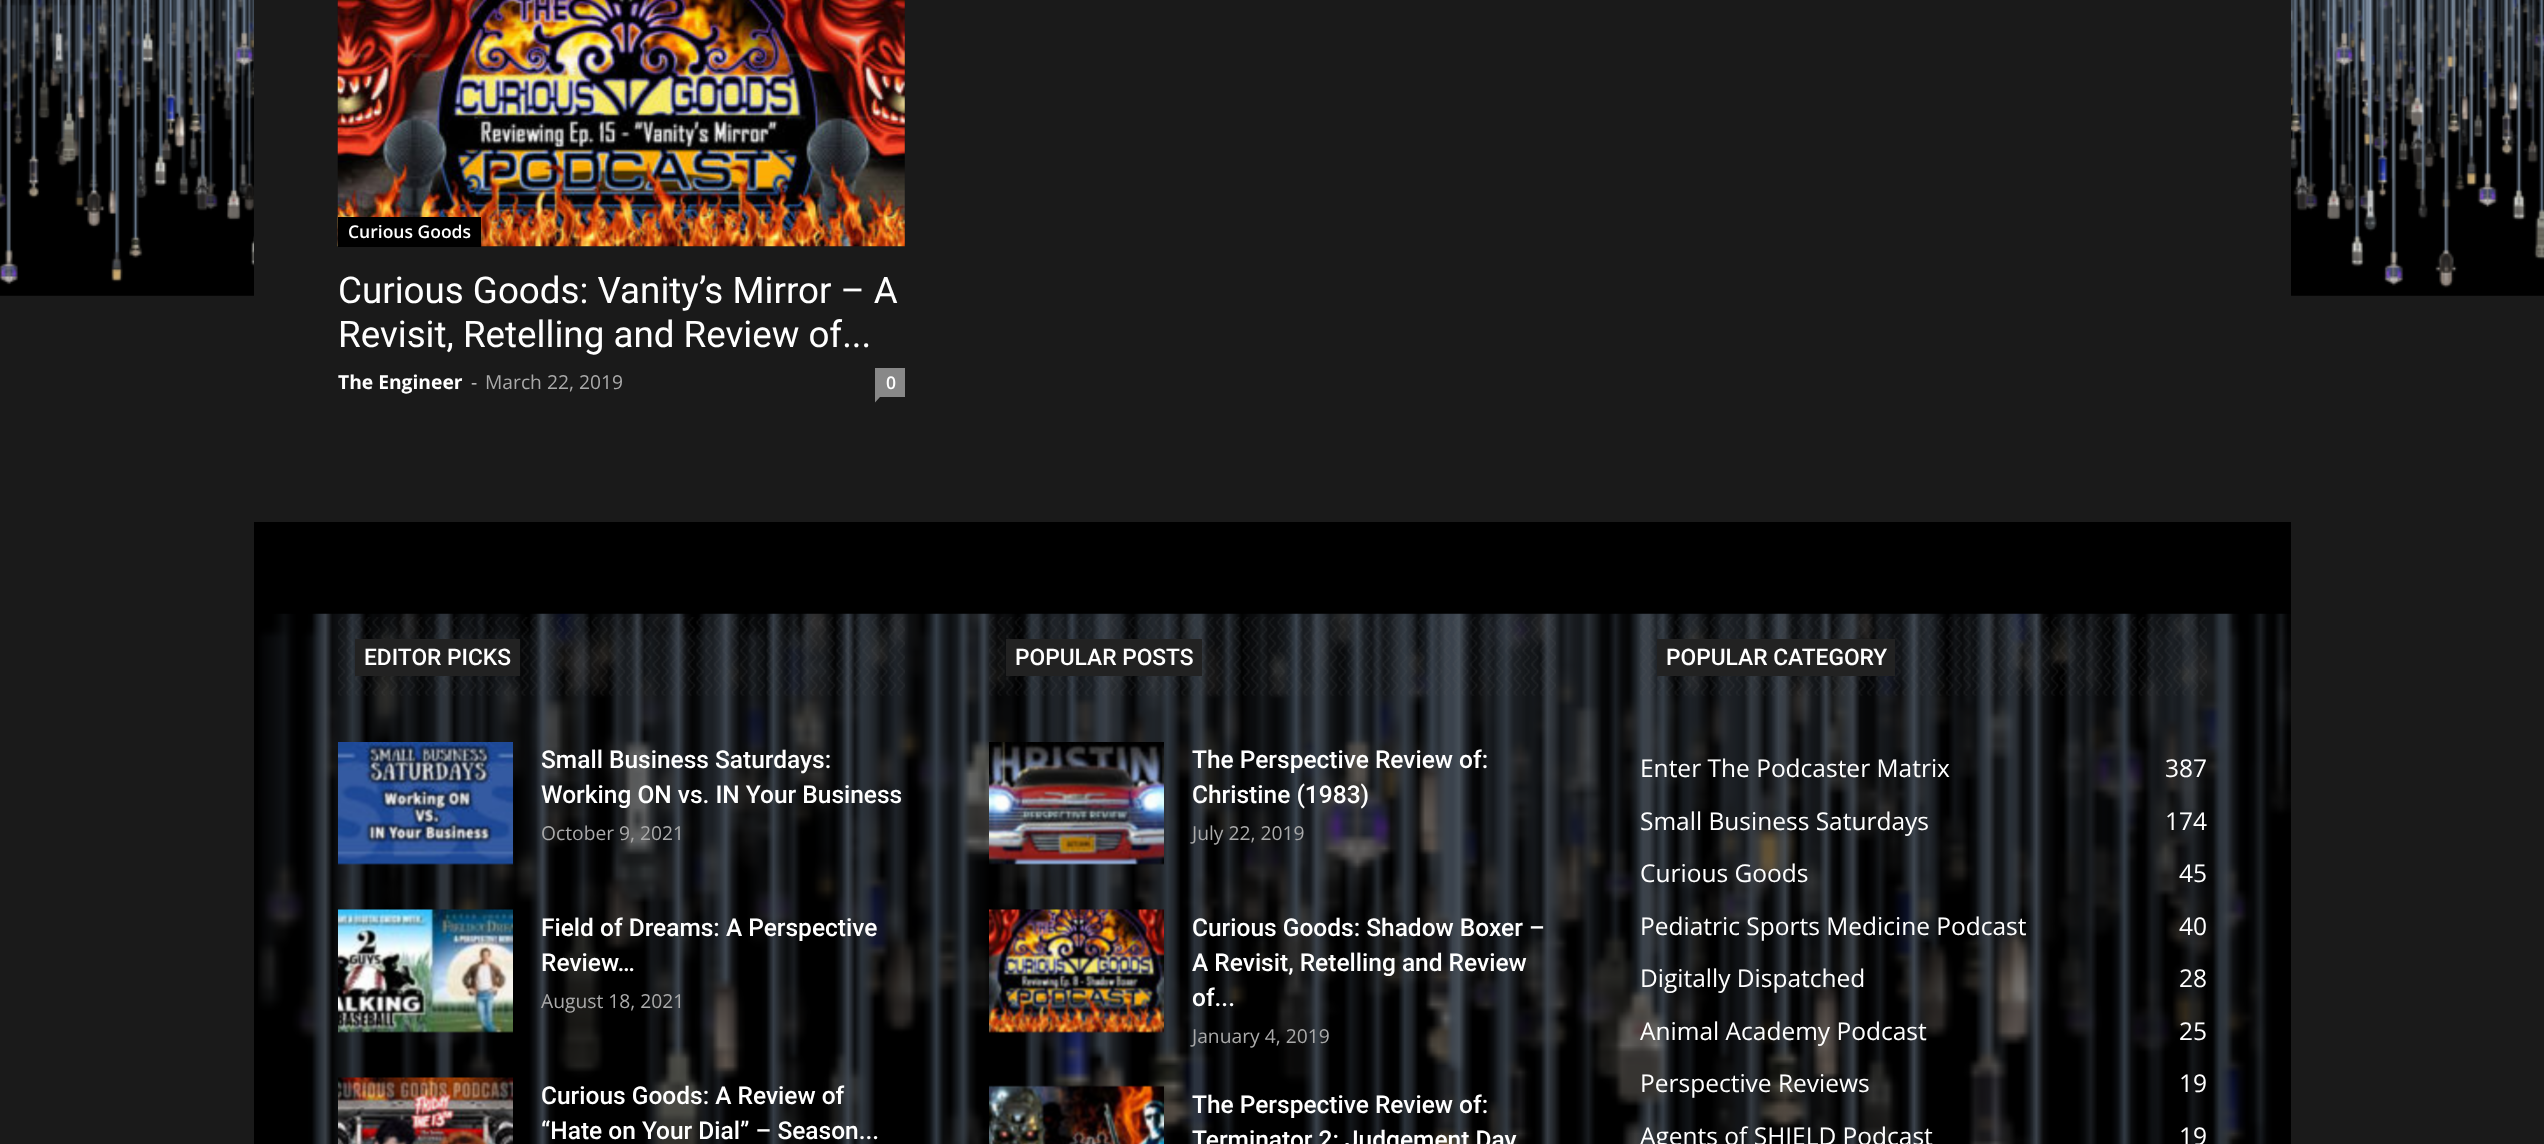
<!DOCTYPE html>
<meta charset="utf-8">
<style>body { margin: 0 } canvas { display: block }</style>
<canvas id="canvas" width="2544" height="1144"></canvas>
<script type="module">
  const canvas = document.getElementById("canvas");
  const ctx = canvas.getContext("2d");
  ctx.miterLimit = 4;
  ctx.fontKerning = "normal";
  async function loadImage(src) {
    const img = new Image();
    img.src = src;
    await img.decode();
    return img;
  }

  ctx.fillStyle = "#1a1a1a";
  ctx.fillRect(0, 0, 2544, 1144);
  ctx.drawImage(await loadImage("img1.png"), 0, 0, 2544, 296);
  ctx.fillRect(254, 0, 2037, 296);
  ctx.drawImage(await loadImage("img3.png"), 337, 0, 568, 247);
  ctx.drawImage(await loadImage("img2.png"), 337, 0, 568, 15);
  ctx.fillStyle = "#000000";
  ctx.fillRect(338, 217, 143, 30);
  ctx.font = "600 17.5px Open Sans";
  ctx.fillStyle = "#ffffff";
  ctx.fillText("Curious Goods", 348, 238);
  ctx.font = "36.75px Roboto";
  ctx.fillText("Curious Goods: Vanity’s Mirror – A", 338, 303);
  ctx.fillText("Revisit, Retelling and Review of...", 338, 347);
  ctx.font = "bold 19.25px Open Sans";
  ctx.fillText("The Engineer", 338, 389);
  ctx.font = "19.25px Open Sans";
  ctx.fillStyle = "#cccccc";
  ctx.fillText("-", 471, 389);
  ctx.fillStyle = "#aaaaaa";
  ctx.fillText("March 22, 2019", 485, 389);
  ctx.fillStyle = "#888888";
  ctx.fillRect(875, 368, 30, 29);
  ctx.font = "600 17.5px Open Sans";
  ctx.fillStyle = "#ffffff";
  ctx.fillText("0", 886, 389);
  ctx.fillStyle = "#888888";
  ctx.beginPath();
  ctx.moveTo(875, 397);
  ctx.lineTo(880, 397);
  ctx.lineTo(875, 402.5);
  ctx.closePath();
  ctx.fill();
  ctx.fillStyle = "#000000";
  ctx.fillRect(254, 522, 2037, 622);
  ctx.drawImage(await loadImage("img4.png"), 258, 613, 2033, 531);
  ctx.drawImage(await loadImage("img5.png"), 338, 617, 567, 79);
  ctx.fillStyle = "#222222";
  ctx.fillRect(355, 639, 165, 37);
  ctx.font = "500 22.75px Roboto";
  ctx.fillStyle = "#ffffff";
  ctx.fillText("EDITOR PICKS", 364, 665);
  ctx.drawImage(await loadImage("img6.png"), 338, 742, 175, 123);
  ctx.font = "500 24.5px Roboto";
  ctx.fillText("Small Business Saturdays:", 541, 768);
  ctx.fillText("Working ON vs. IN Your Business", 541, 803);
  ctx.font = "19.25px Open Sans";
  ctx.fillStyle = "#aaaaaa";
  ctx.fillText("October 9, 2021", 541, 840);
  ctx.drawImage(await loadImage("img7.png"), 338, 909, 175, 124);
  ctx.font = "500 24.5px Roboto";
  ctx.fillStyle = "#ffffff";
  ctx.fillText("Field of Dreams: A Perspective", 541, 936);
  ctx.fillText("Review…", 541, 971);
  ctx.font = "19.25px Open Sans";
  ctx.fillStyle = "#aaaaaa";
  ctx.fillText("August 18, 2021", 541, 1008);
  ctx.drawImage(await loadImage("img8.png"), 338, 1077, 175, 67);
  ctx.font = "500 24.5px Roboto";
  ctx.fillStyle = "#ffffff";
  ctx.fillText("Curious Goods: A Review of", 541, 1104);
  ctx.fillText("“Hate on Your Dial” – Season...", 541, 1139);
  ctx.drawImage(await loadImage("img9.png"), 989, 617, 567, 79);
  ctx.fillStyle = "#222222";
  ctx.fillRect(1006, 639, 196, 37);
  ctx.font = "500 22.75px Roboto";
  ctx.fillStyle = "#ffffff";
  ctx.fillText("POPULAR POSTS", 1015, 665);
  ctx.drawImage(await loadImage("img10.png"), 989, 742, 175, 123);
  ctx.font = "500 24.5px Roboto";
  ctx.fillText("The Perspective Review of:", 1192, 768);
  ctx.fillText("Christine (1983)", 1192, 803);
  ctx.font = "19.25px Open Sans";
  ctx.fillStyle = "#aaaaaa";
  ctx.fillText("July 22, 2019", 1192, 840);
  ctx.drawImage(await loadImage("img11.png"), 989, 909, 175, 124);
  ctx.font = "500 24.5px Roboto";
  ctx.fillStyle = "#ffffff";
  ctx.fillText("Curious Goods: Shadow Boxer –", 1192, 936);
  ctx.fillText("A Revisit, Retelling and Review", 1192, 971);
  ctx.fillText("of...", 1192, 1006);
  ctx.font = "19.25px Open Sans";
  ctx.fillStyle = "#aaaaaa";
  ctx.fillText("January 4, 2019", 1192, 1043);
  ctx.drawImage(await loadImage("img12.png"), 989, 1085, 175, 59);
  ctx.font = "500 24.5px Roboto";
  ctx.fillStyle = "#ffffff";
  ctx.fillText("The Perspective Review of:", 1192, 1113);
  ctx.fillText("Terminator 2: Judgement Day", 1192, 1148);
  ctx.drawImage(await loadImage("img13.png"), 1640, 617, 567, 79);
  ctx.fillStyle = "#222222";
  ctx.fillRect(1657, 639, 238, 37);
  ctx.font = "500 22.75px Roboto";
  ctx.fillStyle = "#ffffff";
  ctx.fillText("POPULAR CATEGORY", 1666, 665);
  ctx.font = "24.5px Open Sans";
  ctx.fillText("Enter The Podcaster Matrix", 1640, 777);
  ctx.fillText("387", 2165, 777);
  ctx.fillText("Small Business Saturdays", 1640, 830);
  ctx.fillText("174", 2165, 830);
  ctx.fillText("Curious Goods", 1640, 882);
  ctx.fillText("45", 2179, 882);
  ctx.fillText("Pediatric Sports Medicine Podcast", 1640, 935);
  ctx.fillText("40", 2179, 935);
  ctx.fillText("Digitally Dispatched", 1640, 987);
  ctx.fillText("28", 2179, 987);
  ctx.fillText("Animal Academy Podcast", 1640, 1040);
  ctx.fillText("25", 2179, 1040);
  ctx.fillText("Perspective Reviews", 1640, 1092);
  ctx.fillText("19", 2179, 1092);
  ctx.fillText("Agents of SHIELD Podcast", 1640, 1145);
  ctx.fillText("19", 2179, 1145);
</script>
